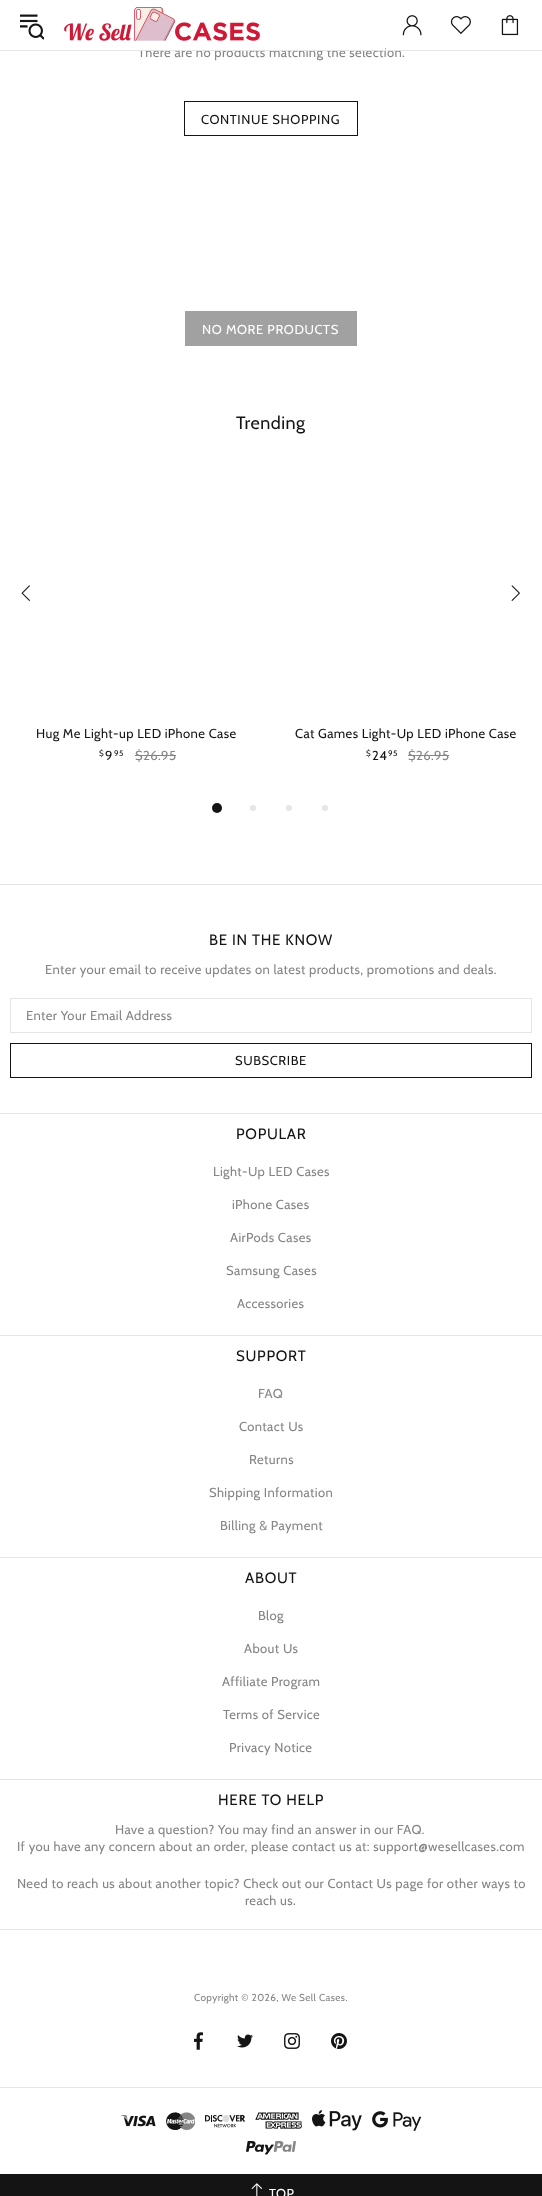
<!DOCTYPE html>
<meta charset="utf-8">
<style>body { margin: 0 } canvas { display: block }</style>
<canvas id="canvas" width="542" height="2196"></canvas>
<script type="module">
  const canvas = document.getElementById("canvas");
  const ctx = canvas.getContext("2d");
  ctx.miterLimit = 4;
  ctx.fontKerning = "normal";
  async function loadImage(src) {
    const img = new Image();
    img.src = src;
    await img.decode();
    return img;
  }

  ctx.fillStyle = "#ffffff";
  ctx.fillRect(0, 0, 542, 2196);
  ctx.letterSpacing = "0.4px";
  ctx.font = "13px Cabin";
  ctx.fillStyle = "#858585";
  ctx.fillText("There are no products matching the selection.", 138, 57);
  ctx.fillStyle = "#ffffff";
  ctx.fillRect(137, 47, 248, 3);
  ctx.fillStyle = "#e5e5e5";
  ctx.fillRect(0, 50, 542, 1);
  ctx.drawImage(await loadImage("img1.png"), 20, 14, 24, 26);
  ctx.drawImage(await loadImage("img2.png"), 64, 7, 196, 34);
  ctx.drawImage(await loadImage("img3.png"), 402, 15, 20, 21);
  ctx.drawImage(await loadImage("img4.png"), 450, 16, 21, 19);
  ctx.drawImage(await loadImage("img5.png"), 501, 15, 18, 21);
  ctx.strokeStyle = "#141414";
  ctx.strokeRect(184.5, 101.5, 173, 34);
  ctx.letterSpacing = "0.6px";
  ctx.fillStyle = "#141414";
  ctx.fillText("CONTINUE SHOPPING", 201, 124);
  ctx.fillStyle = "#a1a1a1";
  ctx.fillRect(185, 311, 172, 35);
  ctx.fillStyle = "#ffffff";
  ctx.fillText("NO MORE PRODUCTS", 202, 334);
  ctx.letterSpacing = "0.5px";
  ctx.font = "18px Cabin";
  ctx.fillStyle = "#141414";
  ctx.fillText("Trending", 236, 429);
  ctx.drawImage(await loadImage("img6.png"), 21, 585, 9, 16);
  ctx.drawImage(await loadImage("img7.png"), 511, 585, 9, 16);
  ctx.letterSpacing = "0.4px";
  ctx.font = "13px Cabin";
  ctx.fillText("Hug Me Light-up LED iPhone Case", 36, 738);
  ctx.font = "8px Cabin";
  ctx.fillText("$", 99, 756);
  ctx.font = "13px Cabin";
  ctx.fillText("9", 105, 760);
  ctx.font = "8px Cabin";
  ctx.fillText("95", 114, 756);
  ctx.font = "13px Cabin";
  ctx.fillStyle = "#858585";
  ctx.fillText("$26.95", 135, 760);
  ctx.fillRect(135, 755, 41, 1);
  ctx.fillStyle = "#141414";
  ctx.fillText("Cat Games Light-Up LED iPhone Case", 295, 738);
  ctx.font = "8px Cabin";
  ctx.fillText("$", 366, 756);
  ctx.font = "13px Cabin";
  ctx.fillText("24", 372, 760);
  ctx.font = "8px Cabin";
  ctx.fillText("95", 388, 756);
  ctx.font = "13px Cabin";
  ctx.fillStyle = "#858585";
  ctx.fillText("$26.95", 408, 760);
  ctx.fillRect(408, 755, 41, 1);
  ctx.fillStyle = "#141414";
  ctx.beginPath();
  ctx.arc(217, 808, 5, 0, Math.PI * 2);
  ctx.fill();
  ctx.fillStyle = "#e5e5e5";
  ctx.beginPath();
  ctx.arc(253, 808, 3, 0, Math.PI * 2);
  ctx.fill();
  ctx.beginPath();
  ctx.arc(289, 808, 3, 0, Math.PI * 2);
  ctx.fill();
  ctx.beginPath();
  ctx.arc(325, 808, 3, 0, Math.PI * 2);
  ctx.fill();
  ctx.fillRect(0, 884, 542, 1);
  ctx.letterSpacing = "0.75px";
  ctx.font = "15px Cabin";
  ctx.fillStyle = "#141414";
  ctx.fillText("BE IN THE KNOW", 209, 945);
  ctx.letterSpacing = "0.4px";
  ctx.font = "13px Cabin";
  ctx.fillStyle = "#858585";
  ctx.fillText("Enter your email to receive updates on latest products, promotions and deals.", 45, 974);
  ctx.strokeStyle = "#e5e5e5";
  ctx.strokeRect(10.5, 998.5, 521, 34);
  ctx.fillText("Enter Your Email Address", 26, 1020);
  ctx.strokeStyle = "#141414";
  ctx.strokeRect(10.5, 1043.5, 521, 34);
  ctx.letterSpacing = "0.6px";
  ctx.fillStyle = "#141414";
  ctx.fillText("SUBSCRIBE", 235, 1065);
  ctx.fillStyle = "#e5e5e5";
  ctx.fillRect(0, 1113, 542, 1);
  ctx.letterSpacing = "0.75px";
  ctx.font = "15px Cabin";
  ctx.fillStyle = "#141414";
  ctx.fillText("POPULAR", 236, 1139);
  ctx.letterSpacing = "0.4px";
  ctx.font = "13px Cabin";
  ctx.fillStyle = "#858585";
  ctx.fillText("Light-Up LED Cases", 213, 1176);
  ctx.fillText("iPhone Cases", 232, 1209);
  ctx.fillText("AirPods Cases", 230, 1242);
  ctx.fillText("Samsung Cases", 226, 1275);
  ctx.fillText("Accessories", 237, 1308);
  ctx.fillStyle = "#e5e5e5";
  ctx.fillRect(0, 1335, 542, 1);
  ctx.letterSpacing = "0.75px";
  ctx.font = "15px Cabin";
  ctx.fillStyle = "#141414";
  ctx.fillText("SUPPORT", 236, 1361);
  ctx.letterSpacing = "0.4px";
  ctx.font = "13px Cabin";
  ctx.fillStyle = "#858585";
  ctx.fillText("FAQ", 258, 1398);
  ctx.fillText("Contact Us", 239, 1431);
  ctx.fillText("Returns", 249, 1464);
  ctx.fillText("Shipping Information", 209, 1497);
  ctx.fillText("Billing & Payment", 220, 1530);
  ctx.fillStyle = "#e5e5e5";
  ctx.fillRect(0, 1557, 542, 1);
  ctx.letterSpacing = "0.75px";
  ctx.font = "15px Cabin";
  ctx.fillStyle = "#141414";
  ctx.fillText("ABOUT", 245, 1583);
  ctx.letterSpacing = "0.4px";
  ctx.font = "13px Cabin";
  ctx.fillStyle = "#858585";
  ctx.fillText("Blog", 258, 1620);
  ctx.fillText("About Us", 244, 1653);
  ctx.fillText("Affiliate Program", 222, 1686);
  ctx.fillText("Terms of Service", 223, 1719);
  ctx.fillText("Privacy Notice", 229, 1752);
  ctx.fillStyle = "#e5e5e5";
  ctx.fillRect(0, 1779, 542, 1);
  ctx.letterSpacing = "0.75px";
  ctx.font = "15px Cabin";
  ctx.fillStyle = "#141414";
  ctx.fillText("HERE TO HELP", 218, 1805);
  ctx.letterSpacing = "0.4px";
  ctx.font = "13px Cabin";
  ctx.fillStyle = "#858585";
  ctx.fillText("Have a question? You may find an answer in our FAQ.", 115, 1834);
  ctx.fillText("If you have any concern about an order, please contact us at: support@wesellcases.com", 17, 1851);
  ctx.fillText("Need to reach us about another topic? Check out our Contact Us page for other ways to", 17, 1888);
  ctx.fillText("reach us.", 245, 1905);
  ctx.fillStyle = "#e5e5e5";
  ctx.fillRect(0, 1929, 542, 1);
  ctx.font = "10px Cabin";
  ctx.fillStyle = "#858585";
  ctx.fillText("Copyright © 2026, We Sell Cases.", 194, 2001);
  ctx.drawImage(await loadImage("img8.png"), 194, 2032, 9, 18);
  ctx.drawImage(await loadImage("img9.png"), 237, 2034, 16, 14);
  ctx.drawImage(await loadImage("img10.png"), 284, 2033, 16, 16);
  ctx.drawImage(await loadImage("img11.png"), 331, 2033, 16, 16);
  ctx.fillStyle = "#e5e5e5";
  ctx.fillRect(0, 2087, 542, 1);
  ctx.drawImage(await loadImage("img12.png"), 120, 2115, 36, 12);
  ctx.drawImage(await loadImage("img13.png"), 166, 2112, 29, 18);
  ctx.drawImage(await loadImage("img14.png"), 205, 2114, 40, 14);
  ctx.drawImage(await loadImage("img15.png"), 255, 2112, 47, 17);
  ctx.drawImage(await loadImage("img16.png"), 312, 2110, 50, 21);
  ctx.drawImage(await loadImage("img17.png"), 372, 2111, 50, 20);
  ctx.drawImage(await loadImage("img18.png"), 246, 2141, 50, 14);
  ctx.fillStyle = "#141414";
  ctx.fillRect(0, 2174, 542, 22);
  ctx.drawImage(await loadImage("img19.png"), 251, 2183, 11, 13);
  ctx.font = "13px Cabin";
  ctx.fillStyle = "#ffffff";
  ctx.fillText("TOP", 269, 2198);
</script>
